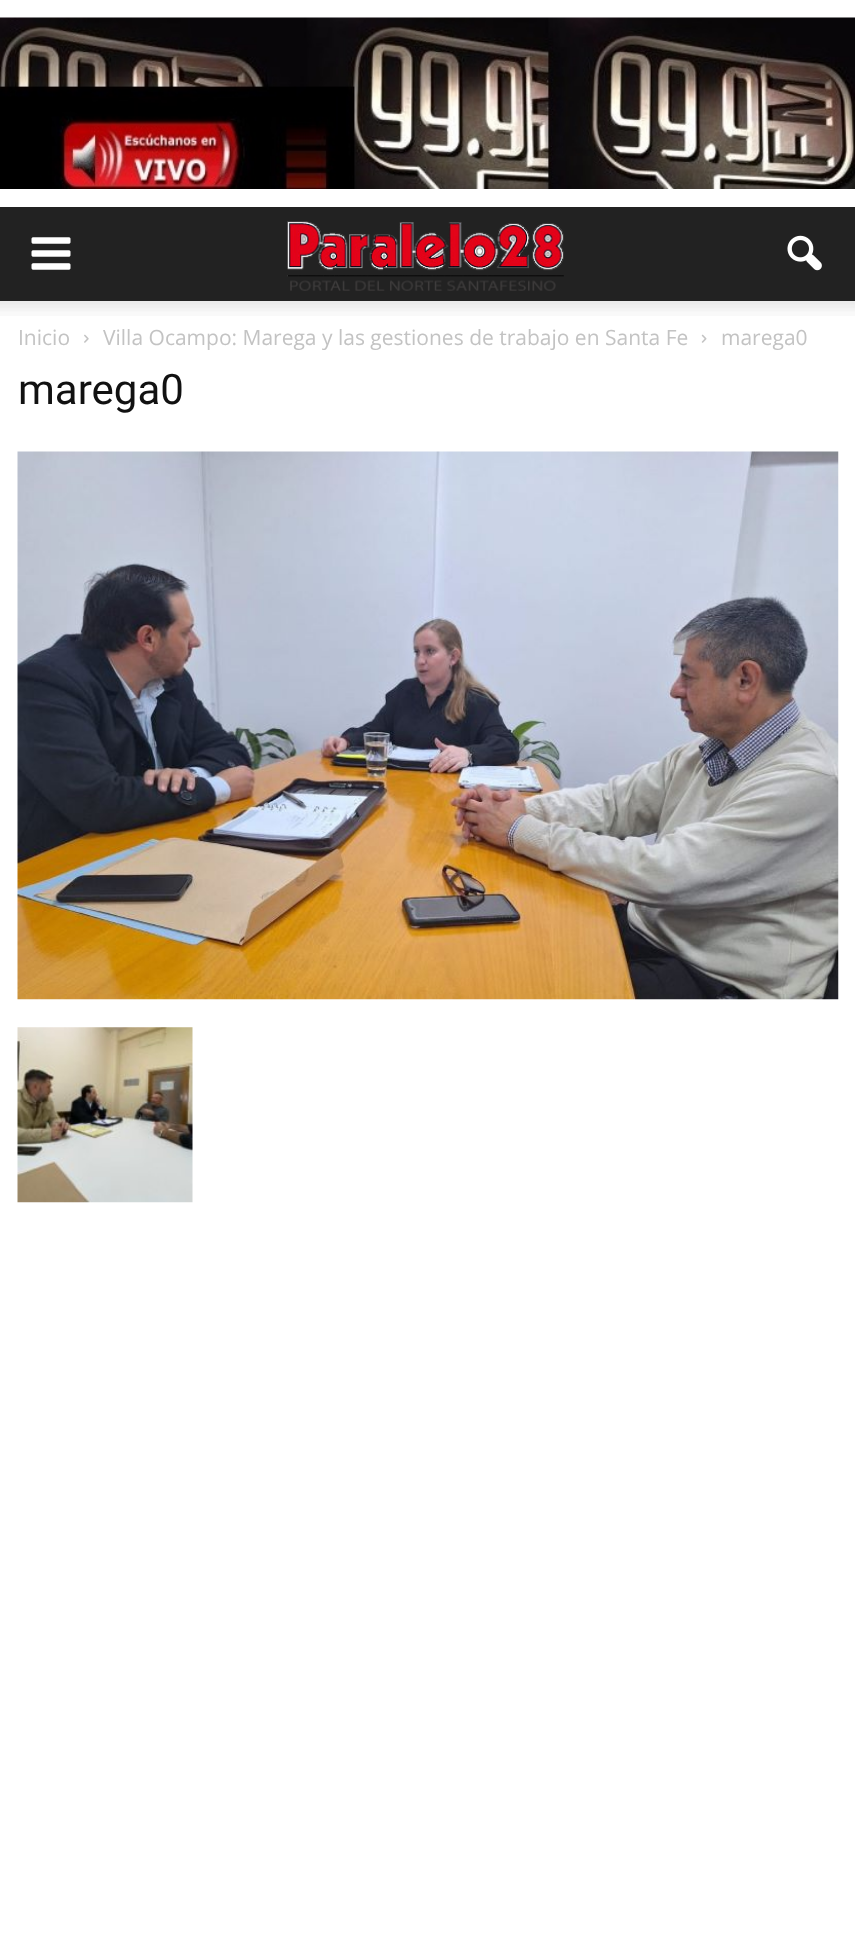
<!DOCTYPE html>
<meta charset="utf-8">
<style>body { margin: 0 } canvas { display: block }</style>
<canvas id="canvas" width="855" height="1954"></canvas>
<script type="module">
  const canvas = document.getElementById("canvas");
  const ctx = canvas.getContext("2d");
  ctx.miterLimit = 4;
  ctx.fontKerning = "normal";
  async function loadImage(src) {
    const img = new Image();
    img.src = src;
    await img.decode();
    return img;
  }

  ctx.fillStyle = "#ffffff";
  ctx.fillRect(0, 0, 855, 1954);
  ctx.drawImage(await loadImage("img1.png"), 0, 17, 855, 172);
  ctx.fillStyle = "#222222";
  ctx.fillRect(0, 207, 855, 94);
  ctx.drawImage(await loadImage("img2.png"), 31, 237, 40, 33);
  ctx.drawImage(await loadImage("img3.png"), 287, 221, 277, 70);
  ctx.drawImage(await loadImage("img4.png"), 787, 235, 35, 36);
  ctx.drawImage(await loadImage("img5.png"), 0, 301, 855, 15);
  ctx.font = "21px Open Sans";
  ctx.fillStyle = "#c3c3c3";
  ctx.fillText("Inicio", 18, 345);
  ctx.drawImage(await loadImage("img6.png"), 84, 334, 5, 9);
  ctx.fillText("Villa Ocampo: Marega y las gestiones de trabajo en Santa Fe", 103, 345);
  ctx.drawImage(await loadImage("img7.png"), 701, 334, 6, 9);
  ctx.fillText("marega0", 721, 345);
  ctx.font = "42px Roboto";
  ctx.fillStyle = "#111111";
  ctx.fillText("marega0", 18, 404);
  ctx.drawImage(await loadImage("img8.png"), 17, 451, 822, 549);
  ctx.drawImage(await loadImage("img9.png"), 17, 1027, 176, 176);
</script>
